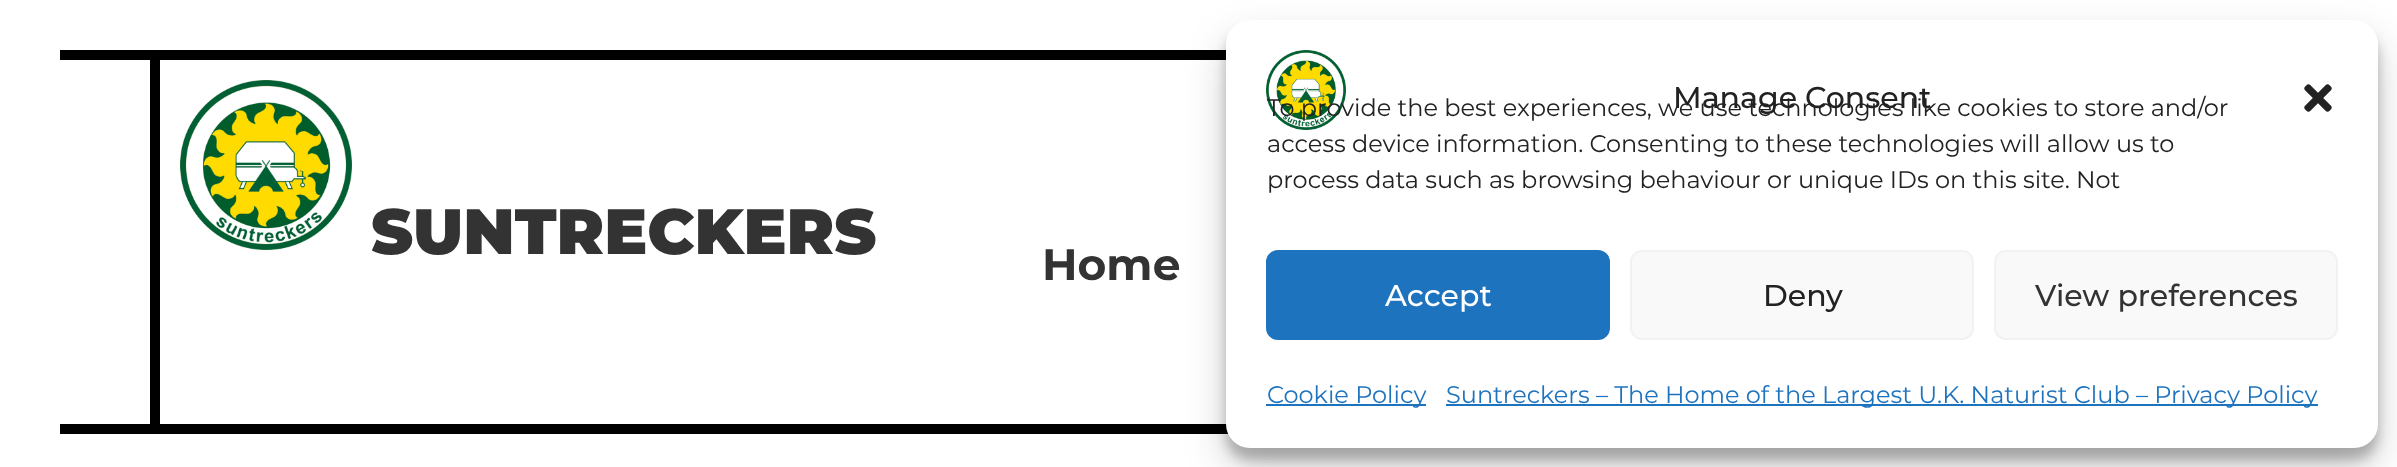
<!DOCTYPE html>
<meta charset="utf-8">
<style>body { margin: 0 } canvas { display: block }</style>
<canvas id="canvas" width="2397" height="467"></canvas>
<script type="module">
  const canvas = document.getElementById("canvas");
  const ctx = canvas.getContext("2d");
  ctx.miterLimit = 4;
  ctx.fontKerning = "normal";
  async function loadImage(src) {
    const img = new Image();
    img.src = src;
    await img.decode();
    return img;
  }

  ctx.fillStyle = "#ffffff";
  ctx.fillRect(0, 0, 2397, 467);
  ctx.fillStyle = "#000000";
  ctx.fillRect(60, 50, 1166, 10);
  ctx.fillRect(60, 424, 1169, 10);
  ctx.fillRect(150, 60, 10, 364);
  ctx.drawImage(await loadImage("img1.png"), 180, 80, 172, 170);
  ctx.font = "900 64px Montserrat";
  ctx.fillStyle = "#333333";
  ctx.fillText("SUNTRECKERS", 371, 254);
  ctx.font = "bold 44px Montserrat";
  ctx.fillText("Home", 1042, 280);
  ctx.fillStyle = "rgba(0, 0, 0, 0.23)";
  ctx.filter = "blur(6px)";
  ctx.beginPath();
  ctx.roundRect(1226, 32, 1152, 428, 24);
  ctx.fill();
  ctx.filter = "none";
  ctx.fillStyle = "rgba(0, 0, 0, 0.19)";
  ctx.filter = "blur(20px)";
  ctx.beginPath();
  ctx.roundRect(1226, 40, 1152, 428, 24);
  ctx.fill();
  ctx.filter = "none";
  ctx.fillStyle = "#ffffff";
  ctx.beginPath();
  ctx.roundRect(1226, 20, 1152, 428, 24);
  ctx.fill();
  ctx.drawImage(await loadImage("img2.png"), 1266, 50, 80, 80);
  ctx.font = "500 30px Montserrat";
  ctx.fillStyle = "#222222";
  ctx.fillText("Manage Consent", 1673, 108);
  ctx.drawImage(await loadImage("img3.png"), 2304, 84, 28, 28);
  ctx.font = "24px Montserrat";
  ctx.fillText("To provide the best experiences, we use technologies like cookies to store and/or", 1267, 116);
  ctx.fillText("access device information. Consenting to these technologies will allow us to", 1267, 152);
  ctx.fillText("process data such as browsing behaviour or unique IDs on this site. Not", 1267, 188);
  ctx.fillStyle = "#1e73be";
  ctx.beginPath();
  ctx.roundRect(1267, 251, 342, 88, 11);
  ctx.fill();
  ctx.strokeStyle = "#1e73be";
  ctx.lineWidth = 2;
  ctx.stroke();
  ctx.font = "500 30px Montserrat";
  ctx.fillStyle = "#ffffff";
  ctx.fillText("Accept", 1385, 306);
  ctx.fillStyle = "#f9f9f9";
  ctx.beginPath();
  ctx.roundRect(1631, 251, 342, 88, 11);
  ctx.fill();
  ctx.strokeStyle = "#f2f2f2";
  ctx.stroke();
  ctx.fillStyle = "#222222";
  ctx.fillText("Deny", 1763, 306);
  ctx.fillStyle = "#f9f9f9";
  ctx.beginPath();
  ctx.roundRect(1995, 251, 342, 88, 11);
  ctx.fill();
  ctx.stroke();
  ctx.fillStyle = "#333333";
  ctx.fillText("View preferences", 2035, 306);
  ctx.fillStyle = "#1e73be";
  ctx.fillRect(1266, 404, 160, 2);
  ctx.font = "24px Montserrat";
  ctx.fillText("Cookie Policy", 1267, 403);
  ctx.fillRect(1446, 404, 872, 2);
  ctx.fillText("Suntreckers – The Home of the Largest U.K. Naturist Club – Privacy Policy", 1446, 403);
</script>
